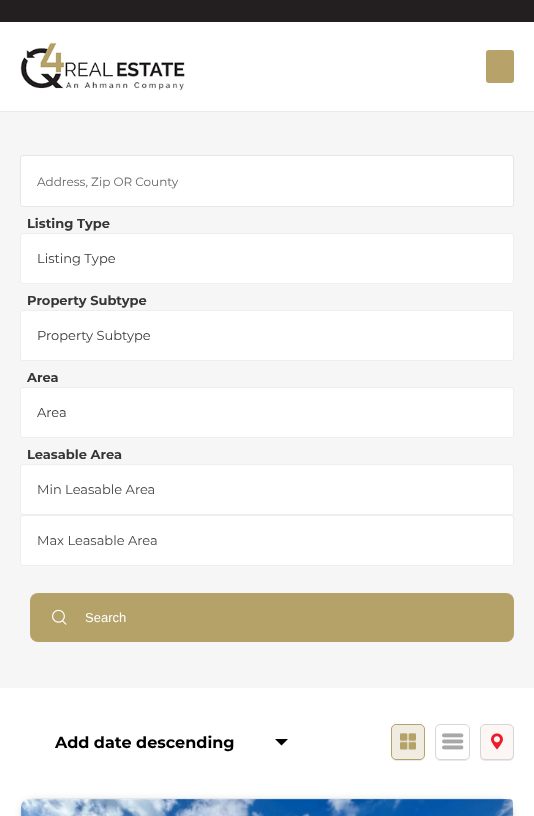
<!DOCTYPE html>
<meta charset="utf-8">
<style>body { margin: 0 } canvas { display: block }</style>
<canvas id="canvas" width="534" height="816"></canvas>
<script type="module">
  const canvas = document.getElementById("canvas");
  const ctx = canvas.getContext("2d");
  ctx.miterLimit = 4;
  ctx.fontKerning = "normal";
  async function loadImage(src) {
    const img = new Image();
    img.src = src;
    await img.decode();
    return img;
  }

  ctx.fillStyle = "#ffffff";
  ctx.fillRect(0, 0, 534, 816);
  ctx.fillStyle = "#231f20";
  ctx.fillRect(0, 0, 534, 22);
  ctx.fillStyle = "#ebebeb";
  ctx.fillRect(0, 111, 534, 1);
  ctx.drawImage(await loadImage("img1.png"), 20, 42, 165, 49);
  ctx.fillStyle = "#b7a269";
  ctx.beginPath();
  ctx.roundRect(486, 50, 28, 33, 3);
  ctx.fill();
  ctx.fillStyle = "#f6f6f6";
  ctx.fillRect(0, 112, 534, 576);
  ctx.fillStyle = "#ffffff";
  ctx.beginPath();
  ctx.roundRect(20.5, 155.5, 493, 51, 2.5);
  ctx.fill();
  ctx.strokeStyle = "#e6e6e6";
  ctx.stroke();
  ctx.font = "12px Montserrat";
  ctx.fillStyle = "#666666";
  ctx.fillText("Address, Zip OR County", 37, 186);
  ctx.font = "bold 13px Montserrat";
  ctx.fillStyle = "#363636";
  ctx.fillText("Listing Type", 27, 228);
  ctx.fillStyle = "#ffffff";
  ctx.beginPath();
  ctx.roundRect(20.5, 233.5, 493, 50, 2.5);
  ctx.fill();
  ctx.strokeStyle = "#eeeeee";
  ctx.stroke();
  ctx.font = "13px Montserrat";
  ctx.fillStyle = "#373a3c";
  ctx.fillText("Listing Type", 37, 263);
  ctx.font = "bold 13px Montserrat";
  ctx.fillStyle = "#363636";
  ctx.fillText("Property Subtype", 27, 305);
  ctx.fillStyle = "#ffffff";
  ctx.beginPath();
  ctx.roundRect(20.5, 310.5, 493, 50, 2.5);
  ctx.fill();
  ctx.stroke();
  ctx.font = "13px Montserrat";
  ctx.fillStyle = "#373a3c";
  ctx.fillText("Property Subtype", 37, 340);
  ctx.font = "bold 13px Montserrat";
  ctx.fillStyle = "#363636";
  ctx.fillText("Area", 27, 382);
  ctx.fillStyle = "#ffffff";
  ctx.beginPath();
  ctx.roundRect(20.5, 387.5, 493, 50, 2.5);
  ctx.fill();
  ctx.stroke();
  ctx.font = "13px Montserrat";
  ctx.fillStyle = "#373a3c";
  ctx.fillText("Area", 37, 417);
  ctx.font = "bold 13px Montserrat";
  ctx.fillStyle = "#363636";
  ctx.fillText("Leasable Area", 27, 459);
  ctx.fillStyle = "#ffffff";
  ctx.beginPath();
  ctx.roundRect(20.5, 464.5, 493, 50, 2.5);
  ctx.fill();
  ctx.stroke();
  ctx.font = "13px Montserrat";
  ctx.fillStyle = "#464646";
  ctx.fillText("Min Leasable Area", 37, 494);
  ctx.fillStyle = "#ffffff";
  ctx.beginPath();
  ctx.roundRect(20.5, 515.5, 493, 50, 2.5);
  ctx.fill();
  ctx.stroke();
  ctx.fillStyle = "#464646";
  ctx.fillText("Max Leasable Area", 37, 545);
  ctx.fillStyle = "#b5a268";
  ctx.beginPath();
  ctx.roundRect(30, 593, 484, 49, 8);
  ctx.fill();
  ctx.drawImage(await loadImage("img2.png"), 52, 609, 15, 16);
  ctx.font = "13px Liberation Sans";
  ctx.fillStyle = "#ffffff";
  ctx.fillText("Search", 85, 622);
  ctx.font = "bold 16px Montserrat";
  ctx.fillStyle = "#000000";
  ctx.fillText("Add date descending", 55, 748);
  ctx.beginPath();
  ctx.moveTo(275, 739);
  ctx.lineTo(288, 739);
  ctx.lineTo(281.5, 745.5);
  ctx.closePath();
  ctx.fill();
  ctx.save();
  ctx.beginPath();
  ctx.moveTo(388, 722);
  ctx.lineTo(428, 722);
  ctx.lineTo(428, 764);
  ctx.lineTo(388, 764);
  ctx.closePath();
  ctx.moveTo(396, 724);
  ctx.lineTo(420, 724);
  ctx.bezierCurveTo(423, 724, 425, 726, 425, 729);
  ctx.lineTo(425, 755);
  ctx.bezierCurveTo(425, 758, 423, 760, 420, 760);
  ctx.lineTo(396, 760);
  ctx.bezierCurveTo(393, 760, 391, 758, 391, 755);
  ctx.lineTo(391, 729);
  ctx.bezierCurveTo(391, 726, 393, 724, 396, 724);
  ctx.closePath();
  ctx.clip("evenodd");
  ctx.fillStyle = "rgba(0, 0, 0, 0.09)";
  ctx.filter = "blur(0.5px)";
  ctx.beginPath();
  ctx.roundRect(391, 725, 34, 36, 5);
  ctx.fill();
  ctx.filter = "none";
  ctx.restore();
  ctx.fillStyle = "rgba(181, 162, 104, 0.2)";
  ctx.beginPath();
  ctx.roundRect(391.5, 724.5, 33, 35, 4.5);
  ctx.fill();
  ctx.strokeStyle = "#b5a268";
  ctx.stroke();
  ctx.fillStyle = "#e4dec9";
  ctx.fillRect(400, 733, 16, 17);
  ctx.drawImage(await loadImage("img3.png"), 400, 733, 16, 17);
  ctx.save();
  ctx.beginPath();
  ctx.moveTo(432, 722);
  ctx.lineTo(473, 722);
  ctx.lineTo(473, 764);
  ctx.lineTo(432, 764);
  ctx.closePath();
  ctx.moveTo(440, 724);
  ctx.lineTo(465, 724);
  ctx.bezierCurveTo(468, 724, 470, 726, 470, 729);
  ctx.lineTo(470, 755);
  ctx.bezierCurveTo(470, 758, 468, 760, 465, 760);
  ctx.lineTo(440, 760);
  ctx.bezierCurveTo(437, 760, 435, 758, 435, 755);
  ctx.lineTo(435, 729);
  ctx.bezierCurveTo(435, 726, 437, 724, 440, 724);
  ctx.closePath();
  ctx.clip("evenodd");
  ctx.fillStyle = "rgba(0, 0, 0, 0.09)";
  ctx.filter = "blur(0.5px)";
  ctx.beginPath();
  ctx.roundRect(435, 725, 35, 36, 5);
  ctx.fill();
  ctx.filter = "none";
  ctx.restore();
  ctx.beginPath();
  ctx.roundRect(435.5, 724.5, 34, 35, 4.5);
  ctx.strokeStyle = "#d6d6d6";
  ctx.stroke();
  ctx.drawImage(await loadImage("img4.png"), 442, 733, 22, 17);
  ctx.fillStyle = "rgba(0, 0, 0, 0.09)";
  ctx.filter = "blur(0.5px)";
  ctx.beginPath();
  ctx.roundRect(480, 725, 34, 36, 5);
  ctx.fill();
  ctx.filter = "none";
  ctx.fillStyle = "#fcf6f5";
  ctx.beginPath();
  ctx.roundRect(480.5, 724.5, 33, 35, 4.5);
  ctx.fill();
  ctx.stroke();
  ctx.drawImage(await loadImage("img5.png"), 491, 733, 12, 17);
  ctx.fillStyle = "rgba(0, 0, 0, 0.08)";
  ctx.filter = "blur(3.5px)";
  ctx.beginPath();
  ctx.roundRect(20, 798, 494, 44, 15);
  ctx.fill();
  ctx.filter = "none";
  ctx.beginPath();
  ctx.roundRect(20.5, 798.5, 493, 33, 14.5);
  ctx.strokeStyle = "#e6e6e6";
  ctx.stroke();
  ctx.drawImage(await loadImage("img6.png"), 21, 799, 492, 17);
</script>
